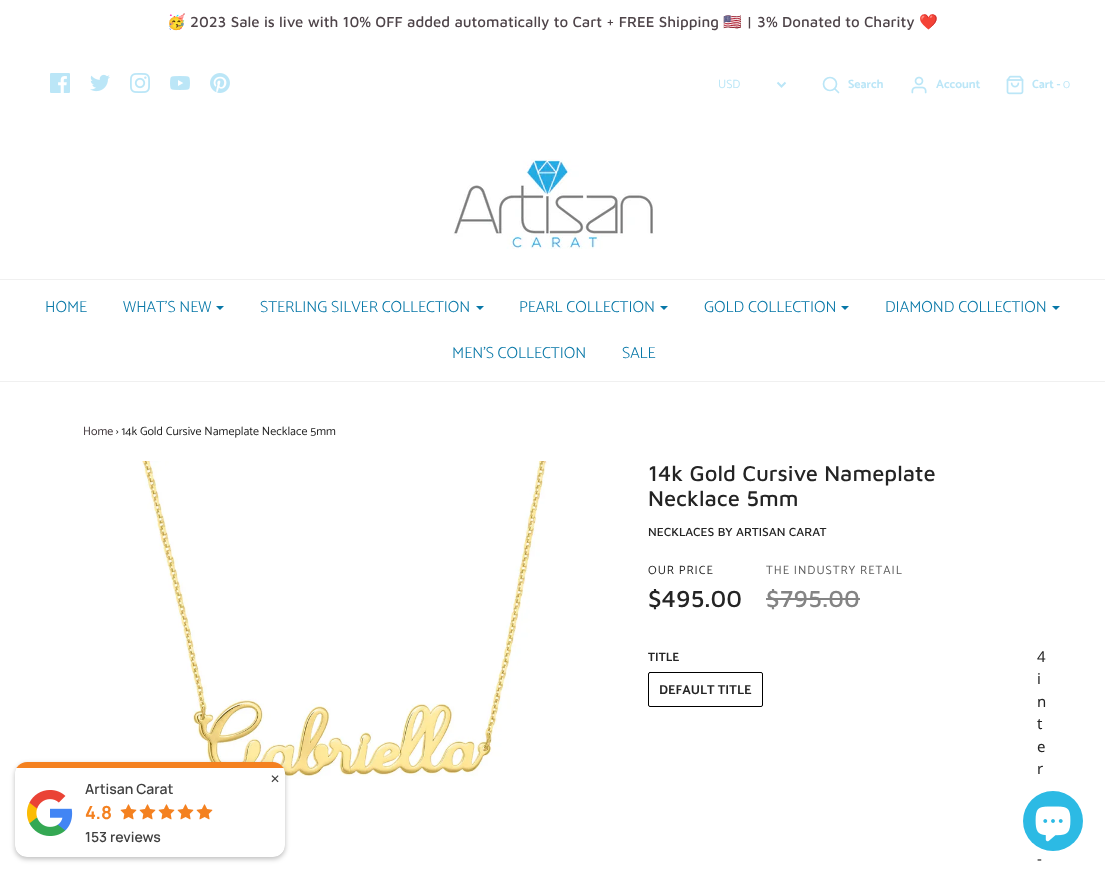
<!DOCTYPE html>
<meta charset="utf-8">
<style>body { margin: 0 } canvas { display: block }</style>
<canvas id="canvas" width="1105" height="872"></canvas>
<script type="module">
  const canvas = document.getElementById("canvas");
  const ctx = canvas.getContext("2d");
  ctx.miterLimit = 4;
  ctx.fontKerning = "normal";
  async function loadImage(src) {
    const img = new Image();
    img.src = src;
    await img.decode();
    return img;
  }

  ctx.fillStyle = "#ffffff";
  ctx.fillRect(0, 0, 1105, 872);
  ctx.font = "15px Noto Color Emoji";
  ctx.fillStyle = "#4e4449";
  ctx.fillText("🥳", 167, 27);
  ctx.font = "500 15px Maven Pro";
  ctx.fillText("2023 Sale is live with 10% OFF added automatically to Cart + FREE Shipping", 190, 27);
  ctx.font = "15px Noto Color Emoji";
  ctx.fillText("🇺🇸", 723, 27);
  ctx.font = "500 15px Maven Pro";
  ctx.fillText("| 3% Donated to Charity", 746, 27);
  ctx.font = "15px Noto Color Emoji";
  ctx.fillText("❤️", 919, 27);
  ctx.drawImage(await loadImage("img1.png"), 50, 73, 20, 20);
  ctx.drawImage(await loadImage("img2.png"), 90, 74, 20, 18);
  ctx.drawImage(await loadImage("img3.png"), 130, 73, 20, 20);
  ctx.drawImage(await loadImage("img4.png"), 170, 76, 20, 14);
  ctx.drawImage(await loadImage("img5.png"), 210, 73, 20, 20);
  ctx.beginPath();
  ctx.moveTo(777.5, 82.5);
  ctx.lineTo(781.5, 86.5);
  ctx.lineTo(785.5, 82.5);
  ctx.strokeStyle = "#bbe6f7";
  ctx.lineWidth = 2;
  ctx.stroke();
  ctx.font = "12px Catamaran";
  ctx.fillStyle = "#bbe6f7";
  ctx.fillText("USD", 718, 88);
  ctx.beginPath();
  ctx.arc(830, 84, 6.5, 0, Math.PI * 2);
  ctx.lineWidth = 1.7;
  ctx.stroke();
  ctx.beginPath();
  ctx.moveTo(838.5, 92.5);
  ctx.lineTo(835, 89);
  ctx.lineCap = "round";
  ctx.lineJoin = "round";
  ctx.stroke();
  ctx.font = "bold 12px Catamaran";
  ctx.fillText("Search", 848, 88);
  ctx.drawImage(await loadImage("img6.png"), 911, 76, 16, 18);
  ctx.fillText("Account", 936, 88);
  ctx.drawImage(await loadImage("img7.png"), 1006, 75, 18, 20);
  ctx.fillText("Cart -", 1032, 88);
  ctx.font = "300 12px Catamaran";
  ctx.fillText("0", 1063, 88);
  ctx.drawImage(await loadImage("img8.png"), 453, 159, 201, 90);
  ctx.fillStyle = "#f0f0f0";
  ctx.fillRect(0, 279, 1105, 1);
  ctx.fillRect(0, 381, 1105, 1);
  ctx.font = "300 16px Catamaran";
  ctx.fillStyle = "#0777a7";
  ctx.fillText("HOME", 45, 312);
  ctx.fillText("WHAT'S NEW", 123, 312);
  ctx.beginPath();
  ctx.moveTo(216, 306);
  ctx.lineTo(224, 306);
  ctx.lineTo(220, 310);
  ctx.closePath();
  ctx.fill();
  ctx.fillText("STERLING SILVER COLLECTION", 260, 312);
  ctx.beginPath();
  ctx.moveTo(476, 306);
  ctx.lineTo(484, 306);
  ctx.lineTo(480, 310);
  ctx.closePath();
  ctx.fill();
  ctx.fillText("PEARL COLLECTION", 519, 312);
  ctx.beginPath();
  ctx.moveTo(660, 306);
  ctx.lineTo(668, 306);
  ctx.lineTo(664, 310);
  ctx.closePath();
  ctx.fill();
  ctx.fillText("GOLD COLLECTION", 704, 312);
  ctx.beginPath();
  ctx.moveTo(841, 306);
  ctx.lineTo(849, 306);
  ctx.lineTo(845, 310);
  ctx.closePath();
  ctx.fill();
  ctx.fillText("DIAMOND COLLECTION", 885, 312);
  ctx.beginPath();
  ctx.moveTo(1052, 306);
  ctx.lineTo(1060, 306);
  ctx.lineTo(1056, 310);
  ctx.closePath();
  ctx.fill();
  ctx.fillText("MEN'S COLLECTION", 452, 358);
  ctx.fillText("SALE", 622, 358);
  ctx.font = "12px Catamaran";
  ctx.fillStyle = "#3d3337";
  ctx.fillText("Home", 83, 435);
  ctx.fillStyle = "#242424";
  ctx.fillText("› 14k Gold Cursive Nameplate Necklace 5mm", 116, 435);
  ctx.drawImage(await loadImage("img9.png"), 142, 461, 407, 358);
  ctx.font = "500 22px Maven Pro";
  ctx.fillText("14k Gold Cursive Nameplate", 648, 481);
  ctx.fillText("Necklace 5mm", 648, 506);
  ctx.font = "500 12px Maven Pro";
  ctx.fillText("NECKLACES BY ARTISAN CARAT", 648, 536);
  ctx.letterSpacing = "1px";
  ctx.font = "12px Catamaran";
  ctx.fillText("OUR PRICE", 648, 574);
  ctx.letterSpacing = "0px";
  ctx.font = "500 24px Maven Pro";
  ctx.fillText("$495.00", 648, 607);
  ctx.letterSpacing = "1px";
  ctx.font = "12px Catamaran";
  ctx.fillStyle = "#5b5b5b";
  ctx.fillText("THE INDUSTRY RETAIL", 766, 574);
  ctx.letterSpacing = "0px";
  ctx.font = "500 24px Maven Pro";
  ctx.fillStyle = "#848484";
  ctx.fillText("$795.00", 766, 607);
  ctx.fillRect(766, 598, 94, 2);
  ctx.font = "bold 12px Catamaran";
  ctx.fillStyle = "#242424";
  ctx.fillText("TITLE", 648, 661);
  ctx.beginPath();
  ctx.roundRect(648.5, 672.5, 114, 34, 1.5);
  ctx.strokeStyle = "#000000";
  ctx.lineWidth = 1;
  ctx.lineJoin = "miter";
  ctx.stroke();
  ctx.font = "bold 13px Catamaran";
  ctx.fillText("DEFAULT TITLE", 659, 694);
  ctx.font = "15px Noto Sans";
  ctx.fillText("4", 1037, 662);
  ctx.fillText("i", 1037, 684);
  ctx.fillText("n", 1037, 707);
  ctx.fillText("t", 1037, 729);
  ctx.fillText("e", 1037, 752);
  ctx.fillText("r", 1037, 774);
  ctx.fillText("-", 1037, 864);
  ctx.fillStyle = "rgba(0, 0, 0, 0.26)";
  ctx.filter = "blur(2.5px)";
  ctx.beginPath();
  ctx.roundRect(15, 764, 270, 95, 12);
  ctx.fill();
  ctx.filter = "none";
  ctx.save();
  ctx.beginPath();
  ctx.roundRect(15, 762, 270, 95, 12);
  ctx.clip();
  ctx.fillStyle = "#f48120";
  ctx.fillRect(15, 762, 270, 6);
  ctx.fillStyle = "#ffffff";
  ctx.beginPath();
  ctx.roundRect(15, 768, 270, 89, [0, 0, 12, 12]);
  ctx.fill();
  ctx.restore();
  ctx.font = "12px DejaVu Sans";
  ctx.fillStyle = "#404040";
  ctx.fillText("✕", 270, 783);
  ctx.drawImage(await loadImage("img10.png"), 27, 790, 46, 46);
  ctx.font = "600 14px Manrope";
  ctx.fillText("Artisan Carat", 85, 794);
  ctx.font = "bold 18px Manrope";
  ctx.fillStyle = "#f48120";
  ctx.fillText("4.8", 85, 819);
  ctx.drawImage(await loadImage("img11.png"), 120, 804, 17, 16);
  ctx.drawImage(await loadImage("img11.png"), 139, 804, 17, 16);
  ctx.drawImage(await loadImage("img11.png"), 158, 804, 17, 16);
  ctx.drawImage(await loadImage("img11.png"), 177, 804, 17, 16);
  ctx.drawImage(await loadImage("img11.png"), 196, 804, 17, 16);
  ctx.font = "600 14px Manrope";
  ctx.fillStyle = "#404040";
  ctx.fillText("153 reviews", 85, 842);
  ctx.fillStyle = "#2cbae4";
  ctx.beginPath();
  ctx.arc(1053, 821, 30, 0, Math.PI * 2);
  ctx.fill();
  ctx.drawImage(await loadImage("img12.png"), 1035, 806, 36, 36);
</script>
